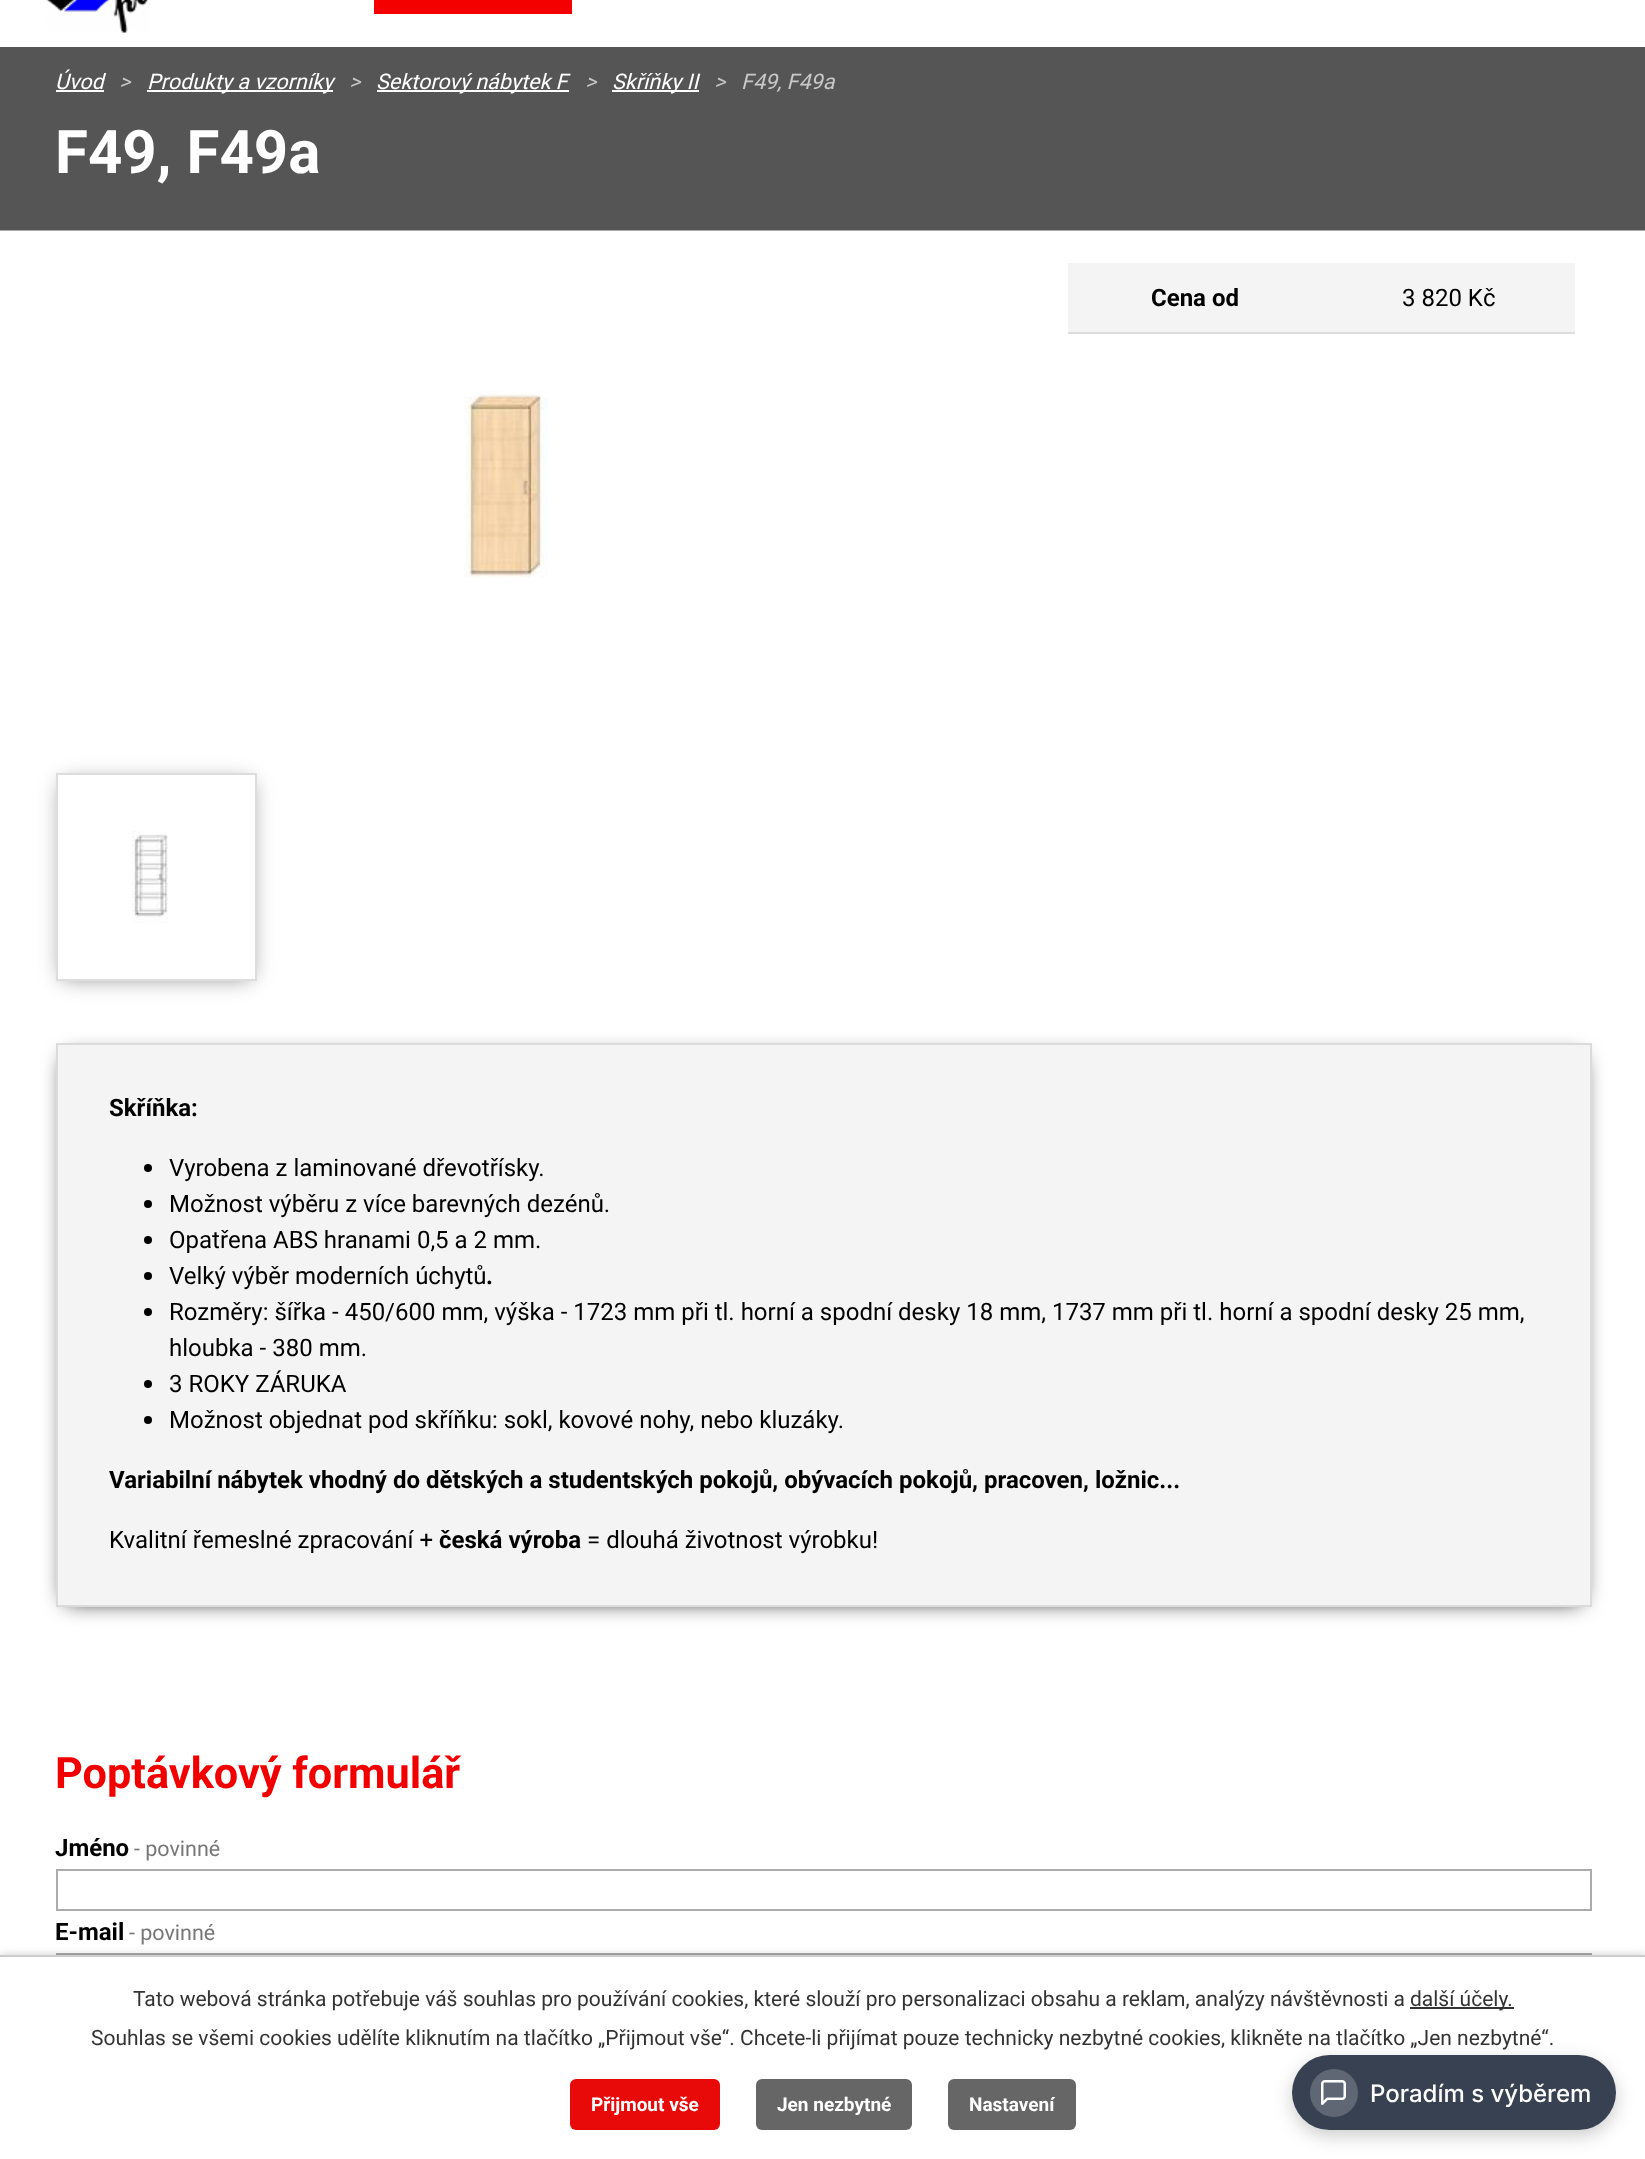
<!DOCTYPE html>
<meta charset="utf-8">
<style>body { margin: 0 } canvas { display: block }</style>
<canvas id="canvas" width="1645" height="2159"></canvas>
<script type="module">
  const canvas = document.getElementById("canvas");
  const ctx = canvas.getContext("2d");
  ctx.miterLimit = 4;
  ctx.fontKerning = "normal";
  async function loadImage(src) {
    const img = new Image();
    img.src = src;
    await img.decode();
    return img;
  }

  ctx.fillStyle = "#ffffff";
  ctx.fillRect(0, 0, 1645, 2159);
  ctx.drawImage(await loadImage("img1.png"), 0, 47, 1645, 184);
  ctx.drawImage(await loadImage("img2.png"), 46, 0, 102, 33);
  ctx.fillStyle = "#f40000";
  ctx.fillRect(374, 0, 198, 14);
  ctx.font = "italic 21.5px Roboto";
  ctx.fillStyle = "#ffffff";
  ctx.fillText("Úvod", 55, 89);
  ctx.fillRect(56, 90, 48, 2);
  ctx.fillStyle = "#c8c8c8";
  ctx.fillText(">", 119, 89);
  ctx.fillStyle = "#ffffff";
  ctx.fillRect(147, 90, 186, 2);
  ctx.fillText("Produkty a vzorníky", 147, 89);
  ctx.fillStyle = "#c8c8c8";
  ctx.fillText(">", 349, 89);
  ctx.fillStyle = "#ffffff";
  ctx.fillRect(377, 90, 192, 2);
  ctx.fillText("Sektorový nábytek F", 376, 89);
  ctx.fillStyle = "#c8c8c8";
  ctx.fillText(">", 585, 89);
  ctx.fillStyle = "#ffffff";
  ctx.fillRect(612, 90, 87, 2);
  ctx.fillText("Skříňky II", 612, 89);
  ctx.fillStyle = "#c8c8c8";
  ctx.fillText(">", 714, 89);
  ctx.fillText("F49, F49a", 741, 89);
  ctx.font = "bold 60px Roboto";
  ctx.fillStyle = "#ffffff";
  ctx.fillText("F49, F49a", 55, 173);
  ctx.fillStyle = "#f4f4f4";
  ctx.fillRect(1068, 263, 507, 69);
  ctx.fillStyle = "#dddddd";
  ctx.fillRect(1068, 332, 507, 2);
  ctx.font = "bold 24px Roboto";
  ctx.fillStyle = "#000000";
  ctx.fillText("Cena od", 1151, 306);
  ctx.font = "24px Roboto";
  ctx.fillText("3 820 Kč", 1402, 306);
  ctx.drawImage(await loadImage("img3.png"), 464, 391, 84, 187);
  ctx.save();
  ctx.beginPath();
  ctx.moveTo(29, 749);
  ctx.lineTo(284, 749);
  ctx.lineTo(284, 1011);
  ctx.lineTo(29, 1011);
  ctx.closePath();
  ctx.moveTo(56, 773);
  ctx.lineTo(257, 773);
  ctx.lineTo(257, 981);
  ctx.lineTo(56, 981);
  ctx.closePath();
  ctx.clip("evenodd");
  ctx.fillStyle = "#888888";
  ctx.filter = "blur(10.5px)";
  ctx.beginPath();
  ctx.rect(62, 782, 189, 196);
  ctx.fill();
  ctx.filter = "none";
  ctx.restore();
  ctx.strokeStyle = "#dddddd";
  ctx.lineWidth = 2;
  ctx.strokeRect(57, 774, 199, 206);
  ctx.drawImage(await loadImage("img4.png"), 132, 831, 36, 92);
  ctx.filter = "blur(11px)";
  ctx.beginPath();
  ctx.rect(66, 1058, 1515, 543);
  ctx.fill();
  ctx.filter = "none";
  ctx.fillStyle = "#f4f4f4";
  ctx.beginPath();
  ctx.rect(57, 1044, 1534, 562);
  ctx.fill();
  ctx.strokeStyle = "#dddada";
  ctx.stroke();
  ctx.font = "bold 24px Roboto";
  ctx.fillStyle = "#000000";
  ctx.fillText("Skříňka:", 109, 1116);
  ctx.beginPath();
  ctx.arc(148, 1168, 4, 0, Math.PI * 2);
  ctx.fill();
  ctx.font = "24px Roboto";
  ctx.fillText("Vyrobena z laminované dřevotřísky.", 169, 1176);
  ctx.beginPath();
  ctx.arc(148, 1204, 4, 0, Math.PI * 2);
  ctx.fill();
  ctx.fillText("Možnost výběru z více barevných dezénů.", 169, 1212);
  ctx.beginPath();
  ctx.arc(148, 1240, 4, 0, Math.PI * 2);
  ctx.fill();
  ctx.fillText("Opatřena ABS hranami 0,5 a 2 mm.", 169, 1248);
  ctx.beginPath();
  ctx.arc(148, 1276, 4, 0, Math.PI * 2);
  ctx.fill();
  ctx.fillText("Velký výběr moderních úchytů", 169, 1284);
  ctx.font = "bold 24px Roboto";
  ctx.fillText(".", 486, 1284);
  ctx.beginPath();
  ctx.arc(148, 1312, 4, 0, Math.PI * 2);
  ctx.fill();
  ctx.font = "24px Roboto";
  ctx.fillText("Rozměry: šířka - 450/600 mm, výška - 1723 mm při tl. horní a spodní desky 18 mm, 1737 mm při tl. horní a spodní desky 25 mm,", 169, 1320);
  ctx.fillText("hloubka - 380 mm.", 169, 1356);
  ctx.beginPath();
  ctx.arc(148, 1384, 4, 0, Math.PI * 2);
  ctx.fill();
  ctx.fillText("3 ROKY ZÁRUKA", 169, 1392);
  ctx.beginPath();
  ctx.arc(148, 1420, 4, 0, Math.PI * 2);
  ctx.fill();
  ctx.fillText("Možnost objednat pod skříňku: sokl, kovové nohy, nebo kluzáky.", 169, 1428);
  ctx.font = "bold 24px Roboto";
  ctx.fillText("Variabilní nábytek vhodný do dětských a studentských pokojů, obývacích pokojů, pracoven, ložnic...", 109, 1488);
  ctx.font = "24px Roboto";
  ctx.fillText("Kvalitní řemeslné zpracování +", 109, 1548);
  ctx.font = "bold 24px Roboto";
  ctx.fillText("česká výroba", 439, 1548);
  ctx.font = "24px Roboto";
  ctx.fillText("= dlouhá životnost výrobku!", 587, 1548);
  ctx.font = "bold 43.25px Roboto";
  ctx.fillStyle = "#f20000";
  ctx.fillText("Poptávkový formulář", 55, 1788);
  ctx.font = "bold 24px Roboto";
  ctx.fillStyle = "#000000";
  ctx.fillText("Jméno", 55, 1856);
  ctx.font = "21.5px Roboto";
  ctx.fillStyle = "#777777";
  ctx.fillText("- povinné", 134, 1856);
  ctx.strokeStyle = "#ababab";
  ctx.strokeRect(57, 1870, 1534, 40);
  ctx.font = "bold 24px Roboto";
  ctx.fillStyle = "#000000";
  ctx.fillText("E-mail", 55, 1940);
  ctx.font = "21.5px Roboto";
  ctx.fillStyle = "#777777";
  ctx.fillText("- povinné", 129, 1940);
  ctx.strokeRect(57, 1954, 1534, 40);
  ctx.fillStyle = "rgba(0, 0, 0, 0.2)";
  ctx.filter = "blur(4px)";
  ctx.beginPath();
  ctx.rect(0, 1955, 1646, 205);
  ctx.fill();
  ctx.filter = "none";
  ctx.fillStyle = "#ffffff";
  ctx.fillRect(0, 1957, 1645, 202);
  ctx.fillStyle = "rgba(0, 0, 0, 0.2)";
  ctx.filter = "blur(9px)";
  ctx.beginPath();
  ctx.roundRect(1292, 2061, 324, 75, 37.5);
  ctx.fill();
  ctx.filter = "none";
  ctx.fillStyle = "#374151";
  ctx.beginPath();
  ctx.roundRect(1292, 2055, 324, 75, 37.5);
  ctx.fill();
  ctx.fillStyle = "#5f6774";
  ctx.beginPath();
  ctx.arc(1334, 2093, 24, 0, Math.PI * 2);
  ctx.fill();
  ctx.drawImage(await loadImage("img5.png"), 1321, 2080, 25, 25);
  ctx.font = "500 24px Inter";
  ctx.fillStyle = "#ffffff";
  ctx.fillText("Poradím s výběrem", 1370, 2102);
  ctx.fillStyle = "#cccccc";
  ctx.fillRect(0, 1955, 1645, 2);
  ctx.font = "21px Roboto";
  ctx.fillStyle = "#333333";
  ctx.fillText("Tato webová stránka potřebuje váš souhlas pro používání cookies, které slouží pro personalizaci obsahu a reklam, analýzy návštěvnosti a", 133, 2006);
  ctx.fillRect(1410, 2007, 104, 2);
  ctx.fillText("další účely.", 1410, 2006);
  ctx.fillText("Souhlas se všemi cookies udělíte kliknutím na tlačítko „Přijmout vše“. Chcete-li přijímat pouze technicky nezbytné cookies, klikněte na tlačítko „Jen nezbytné“.", 91, 2045);
  ctx.fillStyle = "#e80909";
  ctx.beginPath();
  ctx.roundRect(570, 2079, 150, 51, 6);
  ctx.fill();
  ctx.font = "bold 19px Roboto";
  ctx.fillStyle = "#ffffff";
  ctx.fillText("Přijmout vše", 591, 2111);
  ctx.fillStyle = "#666666";
  ctx.beginPath();
  ctx.roundRect(756, 2079, 156, 51, 6);
  ctx.fill();
  ctx.fillStyle = "#ffffff";
  ctx.fillText("Jen nezbytné", 777, 2111);
  ctx.fillStyle = "#666666";
  ctx.beginPath();
  ctx.roundRect(948, 2079, 128, 51, 6);
  ctx.fill();
  ctx.fillStyle = "#ffffff";
  ctx.fillText("Nastavení", 969, 2111);
</script>
